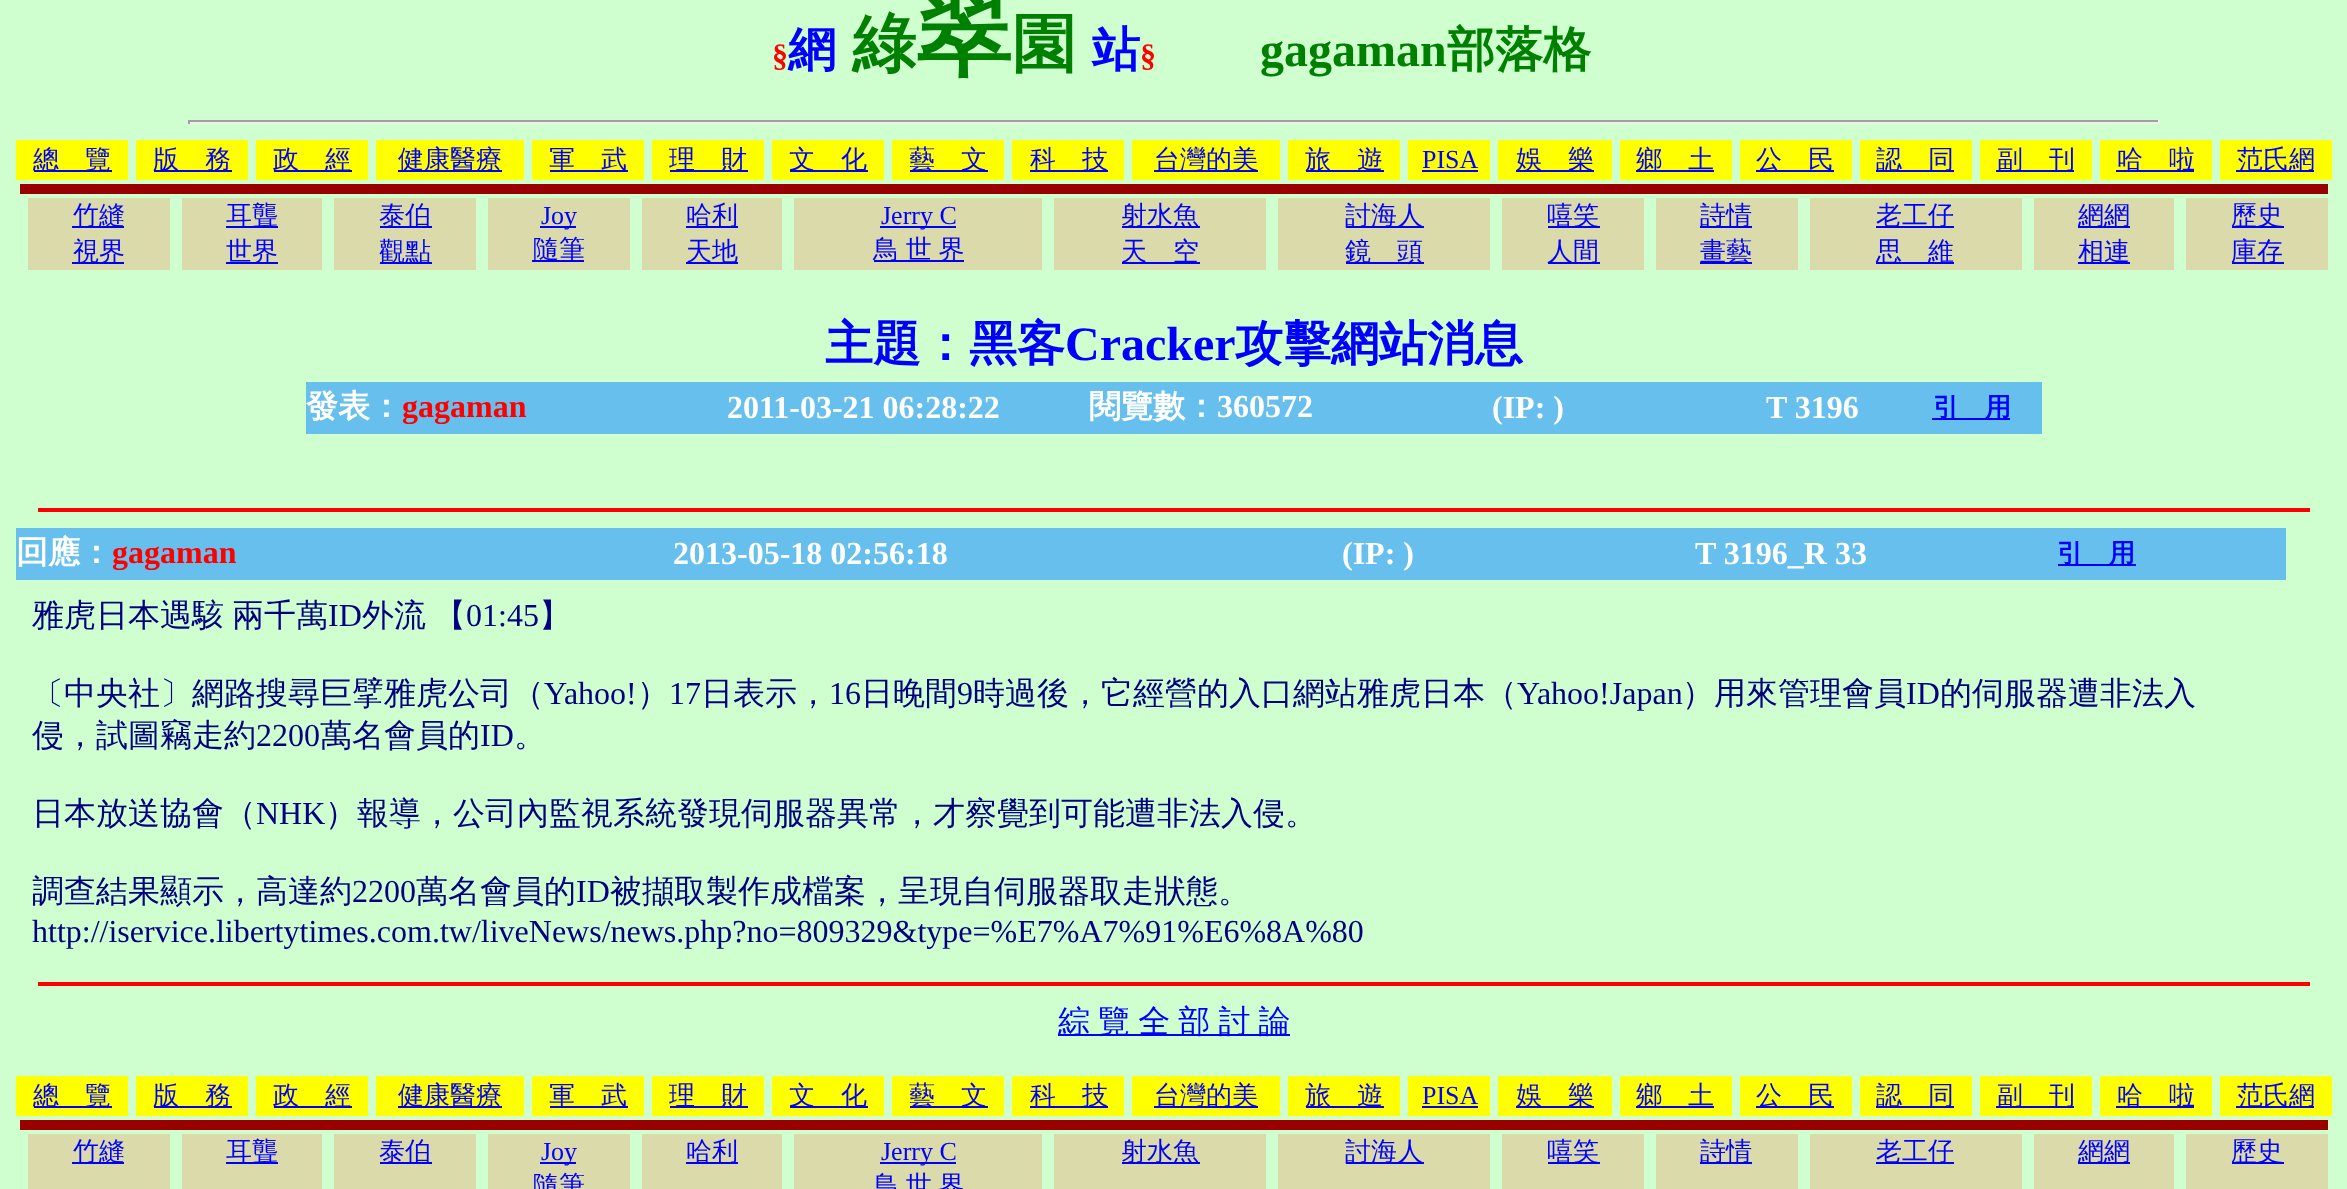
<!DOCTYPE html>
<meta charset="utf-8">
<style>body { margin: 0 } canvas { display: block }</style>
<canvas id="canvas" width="2347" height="1189"></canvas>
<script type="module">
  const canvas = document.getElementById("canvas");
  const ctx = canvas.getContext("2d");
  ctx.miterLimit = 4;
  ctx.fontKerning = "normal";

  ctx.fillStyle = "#cfffcf";
  ctx.fillRect(0, 0, 2347, 1189);
  ctx.font = "bold 32px Liberation Serif";
  ctx.fillStyle = "#ff0000";
  ctx.fillText("§", 772, 66);
  ctx.font = "bold 48px WenQuanYi Zen Hei";
  ctx.fillStyle = "#0000ff";
  ctx.fillText("網", 788, 66);
  ctx.font = "bold 64px WenQuanYi Zen Hei";
  ctx.fillStyle = "#008000";
  ctx.fillText("綠", 852, 66);
  ctx.font = "bold 96px WenQuanYi Zen Hei";
  ctx.fillText("翠", 916, 66);
  ctx.font = "bold 64px WenQuanYi Zen Hei";
  ctx.fillText("園", 1012, 66);
  ctx.font = "bold 48px WenQuanYi Zen Hei";
  ctx.fillStyle = "#0000ff";
  ctx.fillText("站", 1092, 66);
  ctx.font = "bold 32px Liberation Serif";
  ctx.fillStyle = "#ff0000";
  ctx.fillText("§", 1140, 66);
  ctx.font = "bold 48px Liberation Serif";
  ctx.fillStyle = "#008000";
  ctx.fillText("gagaman", 1260, 66);
  ctx.font = "bold 48px WenQuanYi Zen Hei";
  ctx.fillText("部落格", 1447, 66);
  ctx.fillStyle = "#9f9f9f";
  ctx.fillRect(188, 120, 1972, 2);
  ctx.fillStyle = "#eeeeee";
  ctx.fillRect(2158, 120, 2, 4);
  ctx.fillRect(188, 122, 1972, 2);
  ctx.fillStyle = "#9f9f9f";
  ctx.fillRect(188, 120, 2, 4);
  ctx.fillStyle = "#ffff00";
  ctx.fillRect(16, 140, 112, 40);
  ctx.fillStyle = "#0000ff";
  ctx.fillRect(34, 170, 78, 2);
  ctx.font = "500 26px WenQuanYi Zen Hei";
  ctx.fillText("總　覽", 33, 168);
  ctx.fillStyle = "#ffff00";
  ctx.fillRect(136, 140, 112, 40);
  ctx.fillStyle = "#0000ff";
  ctx.fillRect(154, 170, 78, 2);
  ctx.fillText("版　務", 153, 168);
  ctx.fillStyle = "#ffff00";
  ctx.fillRect(256, 140, 112, 40);
  ctx.fillStyle = "#0000ff";
  ctx.fillRect(274, 170, 78, 2);
  ctx.fillText("政　經", 273, 168);
  ctx.fillStyle = "#ffff00";
  ctx.fillRect(376, 140, 148, 40);
  ctx.fillStyle = "#0000ff";
  ctx.fillRect(398, 170, 104, 2);
  ctx.fillText("健康醫療", 398, 168);
  ctx.fillStyle = "#ffff00";
  ctx.fillRect(532, 140, 112, 40);
  ctx.fillStyle = "#0000ff";
  ctx.fillRect(550, 170, 78, 2);
  ctx.fillText("軍　武", 549, 168);
  ctx.fillStyle = "#ffff00";
  ctx.fillRect(652, 140, 112, 40);
  ctx.fillStyle = "#0000ff";
  ctx.fillRect(670, 170, 78, 2);
  ctx.fillText("理　財", 669, 168);
  ctx.fillStyle = "#ffff00";
  ctx.fillRect(772, 140, 112, 40);
  ctx.fillStyle = "#0000ff";
  ctx.fillRect(790, 170, 78, 2);
  ctx.fillText("文　化", 789, 168);
  ctx.fillStyle = "#ffff00";
  ctx.fillRect(892, 140, 112, 40);
  ctx.fillStyle = "#0000ff";
  ctx.fillRect(910, 170, 78, 2);
  ctx.fillText("藝　文", 909, 168);
  ctx.fillStyle = "#ffff00";
  ctx.fillRect(1012, 140, 112, 40);
  ctx.fillStyle = "#0000ff";
  ctx.fillRect(1030, 170, 78, 2);
  ctx.fillText("科　技", 1030, 168);
  ctx.fillStyle = "#ffff00";
  ctx.fillRect(1132, 140, 148, 40);
  ctx.fillStyle = "#0000ff";
  ctx.fillRect(1154, 170, 104, 2);
  ctx.fillText("台灣的美", 1154, 168);
  ctx.fillStyle = "#ffff00";
  ctx.fillRect(1288, 140, 112, 40);
  ctx.fillStyle = "#0000ff";
  ctx.fillRect(1306, 170, 78, 2);
  ctx.fillText("旅　遊", 1305, 168);
  ctx.fillStyle = "#ffff00";
  ctx.fillRect(1408, 140, 82, 40);
  ctx.font = "26px Liberation Serif";
  ctx.fillStyle = "#0000ff";
  ctx.fillText("PISA", 1422, 168);
  ctx.fillRect(1422, 170, 56, 2);
  ctx.fillStyle = "#ffff00";
  ctx.fillRect(1498, 140, 114, 40);
  ctx.fillStyle = "#0000ff";
  ctx.fillRect(1516, 170, 78, 2);
  ctx.font = "500 26px WenQuanYi Zen Hei";
  ctx.fillText("娛　樂", 1516, 168);
  ctx.fillStyle = "#ffff00";
  ctx.fillRect(1620, 140, 112, 40);
  ctx.fillStyle = "#0000ff";
  ctx.fillRect(1636, 170, 78, 2);
  ctx.fillText("鄉　土", 1636, 168);
  ctx.fillStyle = "#ffff00";
  ctx.fillRect(1740, 140, 112, 40);
  ctx.fillStyle = "#0000ff";
  ctx.fillRect(1756, 170, 78, 2);
  ctx.fillText("公　民", 1756, 168);
  ctx.fillStyle = "#ffff00";
  ctx.fillRect(1860, 140, 112, 40);
  ctx.fillStyle = "#0000ff";
  ctx.fillRect(1876, 170, 78, 2);
  ctx.fillText("認　同", 1876, 168);
  ctx.fillStyle = "#ffff00";
  ctx.fillRect(1980, 140, 112, 40);
  ctx.fillStyle = "#0000ff";
  ctx.fillRect(1996, 170, 78, 2);
  ctx.fillText("副　刊", 1997, 168);
  ctx.fillStyle = "#ffff00";
  ctx.fillRect(2100, 140, 112, 40);
  ctx.fillStyle = "#0000ff";
  ctx.fillRect(2116, 170, 78, 2);
  ctx.fillText("哈　啦", 2117, 168);
  ctx.fillStyle = "#ffff00";
  ctx.fillRect(2220, 140, 112, 40);
  ctx.fillStyle = "#0000ff";
  ctx.fillRect(2236, 170, 78, 2);
  ctx.fillText("范氏網", 2237, 168);
  ctx.fillStyle = "#990000";
  ctx.fillRect(20, 184, 2308, 10);
  ctx.fillStyle = "#dadaaa";
  ctx.fillRect(28, 198, 142, 72);
  ctx.fillStyle = "#0000ff";
  ctx.fillRect(72, 226, 52, 2);
  ctx.fillText("竹縫", 73, 224);
  ctx.fillRect(72, 262, 52, 2);
  ctx.fillText("視界", 73, 260);
  ctx.fillStyle = "#dadaaa";
  ctx.fillRect(182, 198, 140, 72);
  ctx.fillStyle = "#0000ff";
  ctx.fillRect(226, 226, 52, 2);
  ctx.fillText("耳聾", 226, 224);
  ctx.fillRect(226, 262, 52, 2);
  ctx.fillText("世界", 226, 260);
  ctx.fillStyle = "#dadaaa";
  ctx.fillRect(334, 198, 142, 72);
  ctx.fillStyle = "#0000ff";
  ctx.fillRect(380, 226, 52, 2);
  ctx.fillText("泰伯", 379, 224);
  ctx.fillRect(380, 262, 52, 2);
  ctx.fillText("觀點", 379, 260);
  ctx.fillStyle = "#dadaaa";
  ctx.fillRect(488, 198, 142, 72);
  ctx.fillStyle = "#0000ff";
  ctx.fillRect(540, 226, 36, 2);
  ctx.font = "26px Liberation Serif";
  ctx.fillText("Joy", 541, 224);
  ctx.fillRect(532, 260, 52, 2);
  ctx.font = "500 26px WenQuanYi Zen Hei";
  ctx.fillText("隨筆", 533, 258);
  ctx.fillStyle = "#dadaaa";
  ctx.fillRect(642, 198, 140, 72);
  ctx.fillStyle = "#0000ff";
  ctx.fillRect(686, 226, 52, 2);
  ctx.fillText("哈利", 686, 224);
  ctx.fillRect(686, 262, 52, 2);
  ctx.fillText("天地", 686, 260);
  ctx.fillStyle = "#dadaaa";
  ctx.fillRect(794, 198, 248, 72);
  ctx.fillStyle = "#0000ff";
  ctx.fillRect(880, 226, 76, 2);
  ctx.font = "26px Liberation Serif";
  ctx.fillText("Jerry C", 881, 224);
  ctx.fillRect(874, 260, 90, 2);
  ctx.wordSpacing = "-1px";
  ctx.font = "500 26px WenQuanYi Zen Hei";
  ctx.fillText("鳥 世 界", 873, 258);
  ctx.fillStyle = "#dadaaa";
  ctx.fillRect(1054, 198, 212, 72);
  ctx.fillStyle = "#0000ff";
  ctx.fillRect(1122, 226, 78, 2);
  ctx.wordSpacing = "0px";
  ctx.fillText("射水魚", 1121, 224);
  ctx.fillRect(1122, 262, 78, 2);
  ctx.fillText("天　空", 1121, 260);
  ctx.fillStyle = "#dadaaa";
  ctx.fillRect(1278, 198, 212, 72);
  ctx.fillStyle = "#0000ff";
  ctx.fillRect(1346, 226, 78, 2);
  ctx.fillText("討海人", 1345, 224);
  ctx.fillRect(1346, 262, 78, 2);
  ctx.fillText("鏡　頭", 1345, 260);
  ctx.fillStyle = "#dadaaa";
  ctx.fillRect(1502, 198, 142, 72);
  ctx.fillStyle = "#0000ff";
  ctx.fillRect(1548, 226, 52, 2);
  ctx.fillText("嘻笑", 1547, 224);
  ctx.fillRect(1548, 262, 52, 2);
  ctx.fillText("人間", 1547, 260);
  ctx.fillStyle = "#dadaaa";
  ctx.fillRect(1656, 198, 142, 72);
  ctx.fillStyle = "#0000ff";
  ctx.fillRect(1700, 226, 52, 2);
  ctx.fillText("詩情", 1700, 224);
  ctx.fillRect(1700, 262, 52, 2);
  ctx.fillText("畫藝", 1700, 260);
  ctx.fillStyle = "#dadaaa";
  ctx.fillRect(1810, 198, 212, 72);
  ctx.fillStyle = "#0000ff";
  ctx.fillRect(1876, 226, 78, 2);
  ctx.fillText("老工仔", 1876, 224);
  ctx.fillRect(1876, 262, 78, 2);
  ctx.fillText("思　維", 1876, 260);
  ctx.fillStyle = "#dadaaa";
  ctx.fillRect(2034, 198, 140, 72);
  ctx.fillStyle = "#0000ff";
  ctx.fillRect(2078, 226, 52, 2);
  ctx.fillText("網網", 2078, 224);
  ctx.fillRect(2078, 262, 52, 2);
  ctx.fillText("相連", 2078, 260);
  ctx.fillStyle = "#dadaaa";
  ctx.fillRect(2186, 198, 142, 72);
  ctx.fillStyle = "#0000ff";
  ctx.fillRect(2232, 226, 52, 2);
  ctx.fillText("歷史", 2231, 224);
  ctx.fillRect(2232, 262, 52, 2);
  ctx.fillText("庫存", 2231, 260);
  ctx.font = "bold 48px WenQuanYi Zen Hei";
  ctx.fillText("主題：黑客", 825, 360);
  ctx.font = "bold 48px Liberation Serif";
  ctx.fillText("Cracker", 1065, 360);
  ctx.font = "bold 48px WenQuanYi Zen Hei";
  ctx.fillText("攻擊網站消息", 1235, 360);
  ctx.fillStyle = "#67bfed";
  ctx.fillRect(306, 382, 1736, 52);
  ctx.font = "bold 32px WenQuanYi Zen Hei";
  ctx.fillStyle = "#ffffff";
  ctx.fillText("發表：", 306, 417);
  ctx.font = "bold 32px Liberation Serif";
  ctx.fillStyle = "#ff0000";
  ctx.fillText("gagaman", 402, 417);
  ctx.fillStyle = "#ffffff";
  ctx.fillText("2011-03-21 06:28:22", 727, 418);
  ctx.font = "bold 32px WenQuanYi Zen Hei";
  ctx.fillText("閱覽數：", 1089, 417);
  ctx.font = "bold 32px Liberation Serif";
  ctx.fillText("360572", 1217, 417);
  ctx.fillText("(IP: )", 1492, 418);
  ctx.fillText("T 3196", 1766, 418);
  ctx.fillStyle = "#0000ff";
  ctx.fillRect(1932, 418, 78, 2);
  ctx.font = "bold 26px WenQuanYi Zen Hei";
  ctx.fillText("引　用", 1933, 416);
  ctx.fillStyle = "#ff0000";
  ctx.fillRect(38, 508, 2272, 4);
  ctx.fillStyle = "#67bfed";
  ctx.fillRect(16, 528, 2270, 52);
  ctx.font = "bold 32px WenQuanYi Zen Hei";
  ctx.fillStyle = "#ffffff";
  ctx.fillText("回應：", 16, 563);
  ctx.font = "bold 32px Liberation Serif";
  ctx.fillStyle = "#ff0000";
  ctx.fillText("gagaman", 112, 563);
  ctx.fillStyle = "#ffffff";
  ctx.fillText("2013-05-18 02:56:18", 673, 564);
  ctx.fillText("(IP: )", 1342, 564);
  ctx.fillText("T 3196_R 33", 1695, 564);
  ctx.fillStyle = "#0000ff";
  ctx.fillRect(2058, 564, 78, 2);
  ctx.font = "bold 26px WenQuanYi Zen Hei";
  ctx.fillText("引　用", 2057, 562);
  ctx.wordSpacing = "-1.5px";
  ctx.font = "500 32px WenQuanYi Zen Hei";
  ctx.fillStyle = "#000080";
  ctx.fillText("雅虎日本遇駭 兩千萬", 32, 626);
  ctx.wordSpacing = "0px";
  ctx.font = "32px Liberation Serif";
  ctx.fillText("ID", 328, 626);
  ctx.wordSpacing = "-1.5px";
  ctx.font = "500 32px WenQuanYi Zen Hei";
  ctx.fillText("外流 【", 362, 626);
  ctx.wordSpacing = "0px";
  ctx.font = "32px Liberation Serif";
  ctx.fillText("01:45", 466, 626);
  ctx.font = "500 32px WenQuanYi Zen Hei";
  ctx.fillText("】", 539, 626);
  ctx.fillText("〔中央社〕網路搜尋巨擘雅虎公司（", 32, 704);
  ctx.font = "32px Liberation Serif";
  ctx.fillText("Yahoo!", 544, 704);
  ctx.font = "500 32px WenQuanYi Zen Hei";
  ctx.fillText("）", 637, 704);
  ctx.font = "32px Liberation Serif";
  ctx.fillText("17", 669, 704);
  ctx.font = "500 32px WenQuanYi Zen Hei";
  ctx.fillText("日表示，", 701, 704);
  ctx.font = "32px Liberation Serif";
  ctx.fillText("16", 829, 704);
  ctx.font = "500 32px WenQuanYi Zen Hei";
  ctx.fillText("日晚間", 861, 704);
  ctx.font = "32px Liberation Serif";
  ctx.fillText("9", 957, 704);
  ctx.font = "500 32px WenQuanYi Zen Hei";
  ctx.fillText("時過後，它經營的入口網站雅虎日本（", 973, 704);
  ctx.font = "32px Liberation Serif";
  ctx.fillText("Yahoo!Japan", 1517, 704);
  ctx.font = "500 32px WenQuanYi Zen Hei";
  ctx.fillText("）用來管理會員", 1682, 704);
  ctx.font = "32px Liberation Serif";
  ctx.fillText("ID", 1906, 704);
  ctx.font = "500 32px WenQuanYi Zen Hei";
  ctx.fillText("的伺服器遭非法入", 1940, 704);
  ctx.fillText("侵，試圖竊走約", 32, 746);
  ctx.font = "32px Liberation Serif";
  ctx.fillText("2200", 256, 746);
  ctx.font = "500 32px WenQuanYi Zen Hei";
  ctx.fillText("萬名會員的", 320, 746);
  ctx.font = "32px Liberation Serif";
  ctx.fillText("ID", 480, 746);
  ctx.font = "500 32px WenQuanYi Zen Hei";
  ctx.fillText("。", 514, 746);
  ctx.fillText("日本放送協會（", 32, 824);
  ctx.font = "32px Liberation Serif";
  ctx.fillText("NHK", 256, 824);
  ctx.font = "500 32px WenQuanYi Zen Hei";
  ctx.fillText("）報導，公司內監視系統發現伺服器異常，才察覺到可能遭非法入侵。", 325, 824);
  ctx.fillText("調查結果顯示，高達約", 32, 902);
  ctx.font = "32px Liberation Serif";
  ctx.fillText("2200", 352, 902);
  ctx.font = "500 32px WenQuanYi Zen Hei";
  ctx.fillText("萬名會員的", 416, 902);
  ctx.font = "32px Liberation Serif";
  ctx.fillText("ID", 576, 902);
  ctx.font = "500 32px WenQuanYi Zen Hei";
  ctx.fillText("被擷取製作成檔案，呈現自伺服器取走狀態。", 610, 902);
  ctx.font = "32px Liberation Serif";
  ctx.fillText("http://iservice.libertytimes.com.tw/liveNews/news.php?no=809329&type=%E7%A7%91%E6%8A%80", 32, 942);
  ctx.fillStyle = "#ff0000";
  ctx.fillRect(38, 982, 2272, 4);
  ctx.fillStyle = "#0000ff";
  ctx.fillRect(1058, 1034, 232, 2);
  ctx.wordSpacing = "-1.5px";
  ctx.font = "500 32px WenQuanYi Zen Hei";
  ctx.fillText("綜 覽 全 部 討 論", 1058, 1032);
  ctx.fillStyle = "#ffff00";
  ctx.fillRect(16, 1076, 112, 40);
  ctx.fillStyle = "#0000ff";
  ctx.fillRect(34, 1106, 78, 2);
  ctx.wordSpacing = "0px";
  ctx.font = "500 26px WenQuanYi Zen Hei";
  ctx.fillText("總　覽", 33, 1104);
  ctx.fillStyle = "#ffff00";
  ctx.fillRect(136, 1076, 112, 40);
  ctx.fillStyle = "#0000ff";
  ctx.fillRect(154, 1106, 78, 2);
  ctx.fillText("版　務", 153, 1104);
  ctx.fillStyle = "#ffff00";
  ctx.fillRect(256, 1076, 112, 40);
  ctx.fillStyle = "#0000ff";
  ctx.fillRect(274, 1106, 78, 2);
  ctx.fillText("政　經", 273, 1104);
  ctx.fillStyle = "#ffff00";
  ctx.fillRect(376, 1076, 148, 40);
  ctx.fillStyle = "#0000ff";
  ctx.fillRect(398, 1106, 104, 2);
  ctx.fillText("健康醫療", 398, 1104);
  ctx.fillStyle = "#ffff00";
  ctx.fillRect(532, 1076, 112, 40);
  ctx.fillStyle = "#0000ff";
  ctx.fillRect(550, 1106, 78, 2);
  ctx.fillText("軍　武", 549, 1104);
  ctx.fillStyle = "#ffff00";
  ctx.fillRect(652, 1076, 112, 40);
  ctx.fillStyle = "#0000ff";
  ctx.fillRect(670, 1106, 78, 2);
  ctx.fillText("理　財", 669, 1104);
  ctx.fillStyle = "#ffff00";
  ctx.fillRect(772, 1076, 112, 40);
  ctx.fillStyle = "#0000ff";
  ctx.fillRect(790, 1106, 78, 2);
  ctx.fillText("文　化", 789, 1104);
  ctx.fillStyle = "#ffff00";
  ctx.fillRect(892, 1076, 112, 40);
  ctx.fillStyle = "#0000ff";
  ctx.fillRect(910, 1106, 78, 2);
  ctx.fillText("藝　文", 909, 1104);
  ctx.fillStyle = "#ffff00";
  ctx.fillRect(1012, 1076, 112, 40);
  ctx.fillStyle = "#0000ff";
  ctx.fillRect(1030, 1106, 78, 2);
  ctx.fillText("科　技", 1030, 1104);
  ctx.fillStyle = "#ffff00";
  ctx.fillRect(1132, 1076, 148, 40);
  ctx.fillStyle = "#0000ff";
  ctx.fillRect(1154, 1106, 104, 2);
  ctx.fillText("台灣的美", 1154, 1104);
  ctx.fillStyle = "#ffff00";
  ctx.fillRect(1288, 1076, 112, 40);
  ctx.fillStyle = "#0000ff";
  ctx.fillRect(1306, 1106, 78, 2);
  ctx.fillText("旅　遊", 1305, 1104);
  ctx.fillStyle = "#ffff00";
  ctx.fillRect(1408, 1076, 82, 40);
  ctx.font = "26px Liberation Serif";
  ctx.fillStyle = "#0000ff";
  ctx.fillText("PISA", 1422, 1104);
  ctx.fillRect(1422, 1106, 56, 2);
  ctx.fillStyle = "#ffff00";
  ctx.fillRect(1498, 1076, 114, 40);
  ctx.fillStyle = "#0000ff";
  ctx.fillRect(1516, 1106, 78, 2);
  ctx.font = "500 26px WenQuanYi Zen Hei";
  ctx.fillText("娛　樂", 1516, 1104);
  ctx.fillStyle = "#ffff00";
  ctx.fillRect(1620, 1076, 112, 40);
  ctx.fillStyle = "#0000ff";
  ctx.fillRect(1636, 1106, 78, 2);
  ctx.fillText("鄉　土", 1636, 1104);
  ctx.fillStyle = "#ffff00";
  ctx.fillRect(1740, 1076, 112, 40);
  ctx.fillStyle = "#0000ff";
  ctx.fillRect(1756, 1106, 78, 2);
  ctx.fillText("公　民", 1756, 1104);
  ctx.fillStyle = "#ffff00";
  ctx.fillRect(1860, 1076, 112, 40);
  ctx.fillStyle = "#0000ff";
  ctx.fillRect(1876, 1106, 78, 2);
  ctx.fillText("認　同", 1876, 1104);
  ctx.fillStyle = "#ffff00";
  ctx.fillRect(1980, 1076, 112, 40);
  ctx.fillStyle = "#0000ff";
  ctx.fillRect(1996, 1106, 78, 2);
  ctx.fillText("副　刊", 1997, 1104);
  ctx.fillStyle = "#ffff00";
  ctx.fillRect(2100, 1076, 112, 40);
  ctx.fillStyle = "#0000ff";
  ctx.fillRect(2116, 1106, 78, 2);
  ctx.fillText("哈　啦", 2117, 1104);
  ctx.fillStyle = "#ffff00";
  ctx.fillRect(2220, 1076, 112, 40);
  ctx.fillStyle = "#0000ff";
  ctx.fillRect(2236, 1106, 78, 2);
  ctx.fillText("范氏網", 2237, 1104);
  ctx.fillStyle = "#990000";
  ctx.fillRect(20, 1120, 2308, 10);
  ctx.fillStyle = "#dadaaa";
  ctx.fillRect(28, 1134, 142, 55);
  ctx.fillStyle = "#0000ff";
  ctx.fillRect(72, 1162, 52, 2);
  ctx.fillText("竹縫", 73, 1160);
  ctx.fillStyle = "#dadaaa";
  ctx.fillRect(182, 1134, 140, 55);
  ctx.fillStyle = "#0000ff";
  ctx.fillRect(226, 1162, 52, 2);
  ctx.fillText("耳聾", 226, 1160);
  ctx.fillStyle = "#dadaaa";
  ctx.fillRect(334, 1134, 142, 55);
  ctx.fillStyle = "#0000ff";
  ctx.fillRect(380, 1162, 52, 2);
  ctx.fillText("泰伯", 379, 1160);
  ctx.fillStyle = "#dadaaa";
  ctx.fillRect(488, 1134, 142, 55);
  ctx.fillStyle = "#0000ff";
  ctx.fillRect(540, 1162, 36, 2);
  ctx.font = "26px Liberation Serif";
  ctx.fillText("Joy", 541, 1160);
  ctx.font = "500 26px WenQuanYi Zen Hei";
  ctx.fillText("隨筆", 533, 1194);
  ctx.fillStyle = "#dadaaa";
  ctx.fillRect(642, 1134, 140, 55);
  ctx.fillStyle = "#0000ff";
  ctx.fillRect(686, 1162, 52, 2);
  ctx.fillText("哈利", 686, 1160);
  ctx.fillStyle = "#dadaaa";
  ctx.fillRect(794, 1134, 248, 55);
  ctx.fillStyle = "#0000ff";
  ctx.fillRect(880, 1162, 76, 2);
  ctx.font = "26px Liberation Serif";
  ctx.fillText("Jerry C", 881, 1160);
  ctx.wordSpacing = "-1px";
  ctx.font = "500 26px WenQuanYi Zen Hei";
  ctx.fillText("鳥 世 界", 873, 1194);
  ctx.fillStyle = "#dadaaa";
  ctx.fillRect(1054, 1134, 212, 55);
  ctx.fillStyle = "#0000ff";
  ctx.fillRect(1122, 1162, 78, 2);
  ctx.wordSpacing = "0px";
  ctx.fillText("射水魚", 1121, 1160);
  ctx.fillStyle = "#dadaaa";
  ctx.fillRect(1278, 1134, 212, 55);
  ctx.fillStyle = "#0000ff";
  ctx.fillRect(1346, 1162, 78, 2);
  ctx.fillText("討海人", 1345, 1160);
  ctx.fillStyle = "#dadaaa";
  ctx.fillRect(1502, 1134, 142, 55);
  ctx.fillStyle = "#0000ff";
  ctx.fillRect(1548, 1162, 52, 2);
  ctx.fillText("嘻笑", 1547, 1160);
  ctx.fillStyle = "#dadaaa";
  ctx.fillRect(1656, 1134, 142, 55);
  ctx.fillStyle = "#0000ff";
  ctx.fillRect(1700, 1162, 52, 2);
  ctx.fillText("詩情", 1700, 1160);
  ctx.fillStyle = "#dadaaa";
  ctx.fillRect(1810, 1134, 212, 55);
  ctx.fillStyle = "#0000ff";
  ctx.fillRect(1876, 1162, 78, 2);
  ctx.fillText("老工仔", 1876, 1160);
  ctx.fillStyle = "#dadaaa";
  ctx.fillRect(2034, 1134, 140, 55);
  ctx.fillStyle = "#0000ff";
  ctx.fillRect(2078, 1162, 52, 2);
  ctx.fillText("網網", 2078, 1160);
  ctx.fillStyle = "#dadaaa";
  ctx.fillRect(2186, 1134, 142, 55);
  ctx.fillStyle = "#0000ff";
  ctx.fillRect(2232, 1162, 52, 2);
  ctx.fillText("歷史", 2231, 1160);
</script>
